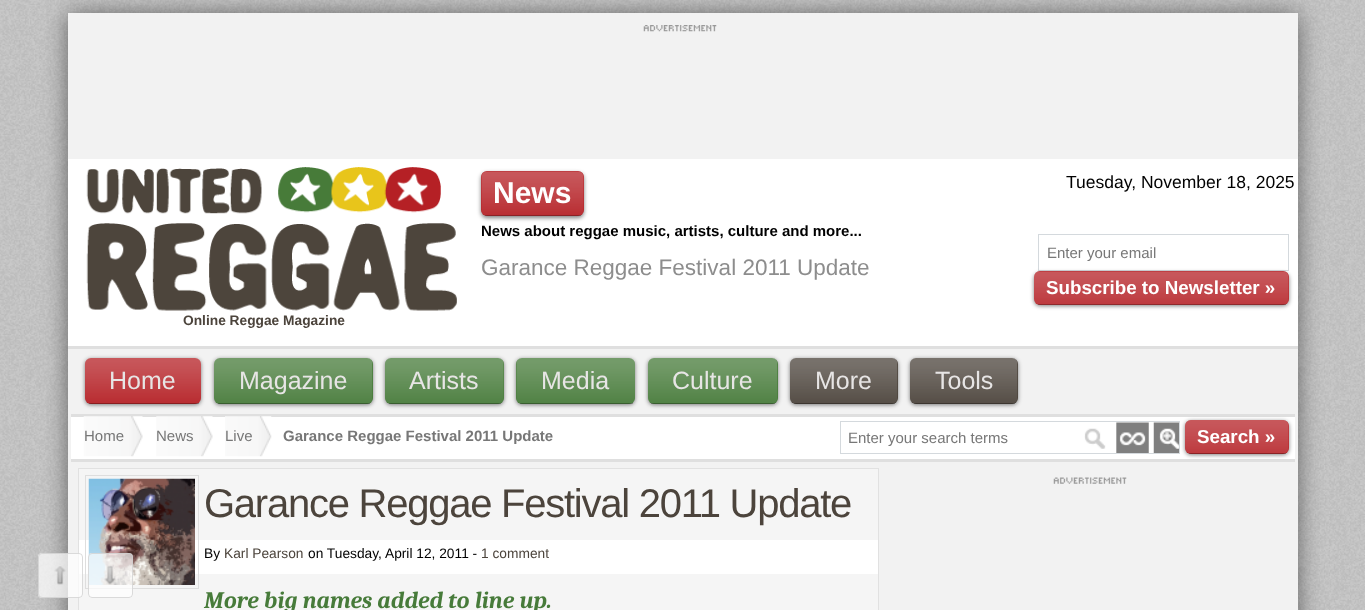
<?xml version="1.0" encoding="UTF-8"?>
<svg xmlns="http://www.w3.org/2000/svg" width="1365" height="610">
    <defs>
        <filter id="blur1" x="-50%" y="-200%" width="200%" height="500%"><feGaussianBlur stdDeviation="12.5"/></filter>
        <filter id="blur2" x="-50%" y="-200%" width="200%" height="500%"><feGaussianBlur stdDeviation="2"/></filter>
    </defs>
    <rect width="100%" height="100%" fill="#FFFFFF"/>
    <image x="0" y="0" width="1365" height="610" href="img_01.png"/>
    <rect x="68" y="14" width="1230" height="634" fill="#000000" fill-opacity="0.5" filter="url(#blur1)"/>
    <rect x="68" y="13" width="1230" height="597" fill="#F2F2F2"/>
    <rect x="79" y="540" width="799" height="34" fill="#FFFFFF"/>
    <rect x="78.5" y="468.5" width="800" height="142" fill="none" stroke="#E1E1E1"/>
    <rect x="79" y="574" width="799" height="36" fill="#F5F5F5"/>
    <rect x="38" y="553" width="45" height="45" rx="4" fill="#FFFFFF" fill-opacity="0.7"/>
    <image x="54" y="566" width="12" height="19" href="img_02.png"/>
    <rect x="38.5" y="553.5" width="44" height="44" rx="3.5" fill="none" stroke="#CCCCCC" stroke-opacity="0.7"/>
    <image x="643" y="25" width="74" height="7" href="img_03.png"/>
    <rect x="68" y="159" width="1230" height="187" fill="#FFFFFF"/>
    <rect x="68" y="346" width="1230" height="3" fill="#DFDFDF"/>
    <rect x="481" y="173" width="103" height="45" rx="6" fill="#000000" fill-opacity="0.5" filter="url(#blur2)"/>
    <rect x="481" y="171" width="103" height="45" rx="6" fill="#B52025"/>
    <image x="481" y="171" width="103" height="45" href="img_04.png"/>
    <rect x="485" y="215" width="96" height="1" fill="#000000" fill-opacity="0.25"/>
    <text x="493" y="203" font-family="Liberation Sans" font-size="30" font-weight="700" fill="#FFFFFF">News</text>
    <text x="481" y="236" font-family="Liberation Sans" font-size="15" font-weight="700" fill="#000000">News about reggae music, artists, culture and more...</text>
    <text x="481" y="275" font-family="Liberation Sans" font-size="22.5" fill="#8D8D8D">Garance Reggae Festival 2011 Update</text>
    <text x="1066" y="188" font-family="Liberation Sans" font-size="17.5" fill="#000000">Tuesday, November 18, 2025</text>
    <rect x="1038.5" y="234.5" width="250" height="36" fill="none" stroke="#D4D9DD"/>
    <text x="1047" y="258" font-family="Liberation Sans" font-size="15" fill="#777777">Enter your email</text>
    <rect x="1034" y="273" width="255" height="33" rx="6" fill="#000000" fill-opacity="0.5" filter="url(#blur2)"/>
    <rect x="1034" y="271" width="255" height="34" rx="6" fill="#B52025"/>
    <image x="1034" y="271" width="255" height="34" href="img_05.png"/>
    <rect x="1038" y="304" width="248" height="1" fill="#000000" fill-opacity="0.25"/>
    <text x="1046" y="294" font-family="Liberation Sans" font-size="18.75" font-weight="700" fill="#FFFFFF">Subscribe to Newsletter »</text>
    <image x="86" y="167" width="371" height="144" href="img_06.png"/>
    <text x="183" y="325" font-family="Liberation Sans" font-size="13.75" font-weight="700" fill="#4C443C">Online Reggae Magazine</text>
    <rect x="85" y="359" width="116" height="46" rx="6" fill="#000000" fill-opacity="0.5" filter="url(#blur2)"/>
    <rect x="85" y="358" width="116" height="46" rx="6" fill="#B52025"/>
    <image x="85" y="358" width="116" height="46" href="img_07.png"/>
    <rect x="89" y="403" width="110" height="1" fill="#000000" fill-opacity="0.25"/>
    <text x="109" y="389" font-family="Liberation Sans" font-size="25" fill="#E7E5E5">Home</text>
    <rect x="214" y="359" width="159" height="46" rx="6" fill="#000000" fill-opacity="0.5" filter="url(#blur2)"/>
    <rect x="214" y="358" width="159" height="46" rx="6" fill="#477B3A"/>
    <image x="214" y="358" width="159" height="46" href="img_08.png"/>
    <rect x="218" y="403" width="152" height="1" fill="#000000" fill-opacity="0.25"/>
    <text x="239" y="389" font-family="Liberation Sans" font-size="25" fill="#E7E5E5">Magazine</text>
    <rect x="385" y="359" width="119" height="46" rx="6" fill="#000000" fill-opacity="0.5" filter="url(#blur2)"/>
    <rect x="385" y="358" width="119" height="46" rx="6" fill="#477B3A"/>
    <image x="385" y="358" width="119" height="46" href="img_09.png"/>
    <rect x="389" y="403" width="112" height="1" fill="#000000" fill-opacity="0.25"/>
    <text x="409" y="389" font-family="Liberation Sans" font-size="25" fill="#E7E5E5">Artists</text>
    <rect x="516" y="359" width="119" height="46" rx="6" fill="#000000" fill-opacity="0.5" filter="url(#blur2)"/>
    <rect x="516" y="358" width="119" height="46" rx="6" fill="#477B3A"/>
    <image x="516" y="358" width="119" height="46" href="img_10.png"/>
    <rect x="520" y="403" width="113" height="1" fill="#000000" fill-opacity="0.25"/>
    <text x="541" y="389" font-family="Liberation Sans" font-size="25" fill="#E7E5E5">Media</text>
    <rect x="648" y="359" width="130" height="46" rx="6" fill="#000000" fill-opacity="0.5" filter="url(#blur2)"/>
    <rect x="648" y="358" width="130" height="46" rx="6" fill="#477B3A"/>
    <image x="648" y="358" width="130" height="46" href="img_11.png"/>
    <rect x="651" y="403" width="124" height="1" fill="#000000" fill-opacity="0.25"/>
    <text x="672" y="389" font-family="Liberation Sans" font-size="25" fill="#E7E5E5">Culture</text>
    <rect x="790" y="359" width="108" height="46" rx="6" fill="#000000" fill-opacity="0.5" filter="url(#blur2)"/>
    <rect x="790" y="358" width="108" height="46" rx="6" fill="#4C443C"/>
    <image x="790" y="358" width="108" height="46" href="img_12.png"/>
    <rect x="794" y="403" width="101" height="1" fill="#000000" fill-opacity="0.25"/>
    <text x="815" y="389" font-family="Liberation Sans" font-size="25" fill="#E7E5E5">More</text>
    <rect x="910" y="359" width="108" height="46" rx="6" fill="#000000" fill-opacity="0.5" filter="url(#blur2)"/>
    <rect x="910" y="358" width="108" height="46" rx="6" fill="#4C443C"/>
    <image x="910" y="358" width="108" height="46" href="img_13.png"/>
    <rect x="914" y="403" width="101" height="1" fill="#000000" fill-opacity="0.25"/>
    <text x="935" y="389" font-family="Liberation Sans" font-size="25" fill="#E7E5E5">Tools</text>
    <rect x="71" y="417" width="1224" height="42" fill="#FFFFFF"/>
    <rect x="71" y="414" width="1224" height="3" fill="#DFDFDF"/>
    <rect x="71" y="459" width="1224" height="3" fill="#DFDFDF"/>
    <image x="83" y="416" width="60" height="41" href="img_14.png"/>
    <text x="84" y="441" font-family="Liberation Sans" font-size="15" fill="#777777">Home</text>
    <image x="156" y="416" width="57" height="41" href="img_15.png"/>
    <text x="156" y="441" font-family="Liberation Sans" font-size="15" fill="#777777">News</text>
    <image x="225" y="416" width="47" height="41" href="img_16.png"/>
    <text x="225" y="441" font-family="Liberation Sans" font-size="15" fill="#777777">Live</text>
    <text x="283" y="441" font-family="Liberation Sans" font-size="15" font-weight="700" fill="#777777">Garance Reggae Festival 2011 Update</text>
    <image x="1084" y="422" width="95" height="31" href="img_17.png"/>
    <rect x="840.5" y="421.5" width="339" height="32" fill="none" stroke="#D4D9DD"/>
    <text x="848" y="443" font-family="Liberation Sans" font-size="15" fill="#777777">Enter your search terms</text>
    <rect x="1185" y="421" width="104" height="34" rx="6" fill="#000000" fill-opacity="0.5" filter="url(#blur2)"/>
    <rect x="1185" y="420" width="104" height="34" rx="6" fill="#B52025"/>
    <image x="1185" y="420" width="104" height="34" href="img_18.png"/>
    <rect x="1189" y="453" width="97" height="1" fill="#000000" fill-opacity="0.25"/>
    <text x="1197" y="443" font-family="Liberation Sans" font-size="18.75" font-weight="700" fill="#FFFFFF">Search »</text>
    <image x="1053" y="477" width="74" height="7" href="img_19.png"/>
    <rect x="79" y="469" width="799" height="71" fill="#F5F5F5"/>
    <rect x="85.5" y="475.5" width="113" height="113" fill="none" stroke="#DEDEDE"/>
    <image x="88" y="478" width="107" height="107" href="img_20.png"/>
    <text x="204" y="517" font-family="Liberation Sans" font-size="40" letter-spacing="-1.25" fill="#4C443C">Garance Reggae Festival 2011 Update</text>
    <text x="204" y="558" font-family="Liberation Sans" font-size="13.75" fill="#000000">By</text>
    <text x="224" y="558" font-family="Liberation Sans" font-size="13.75" fill="#4C443C">Karl Pearson</text>
    <text x="308" y="558" font-family="Liberation Sans" font-size="13.75" fill="#000000">on Tuesday, April 12, 2011 -</text>
    <text x="481" y="558" font-family="Liberation Sans" font-size="13.75" fill="#4C443C">1 comment</text>
    <text x="204" y="608" font-family="Caladea" font-size="23.75" font-weight="700" font-style="italic" fill="#477B3A">More big names added to line up.</text>
    <rect x="88" y="553" width="45" height="45" rx="4" fill="#FFFFFF" fill-opacity="0.7"/>
    <image x="104" y="565" width="12" height="20" href="img_21.png"/>
    <rect x="88.5" y="553.5" width="44" height="44" rx="3.5" fill="none" stroke="#CCCCCC" stroke-opacity="0.7"/>
</svg>
